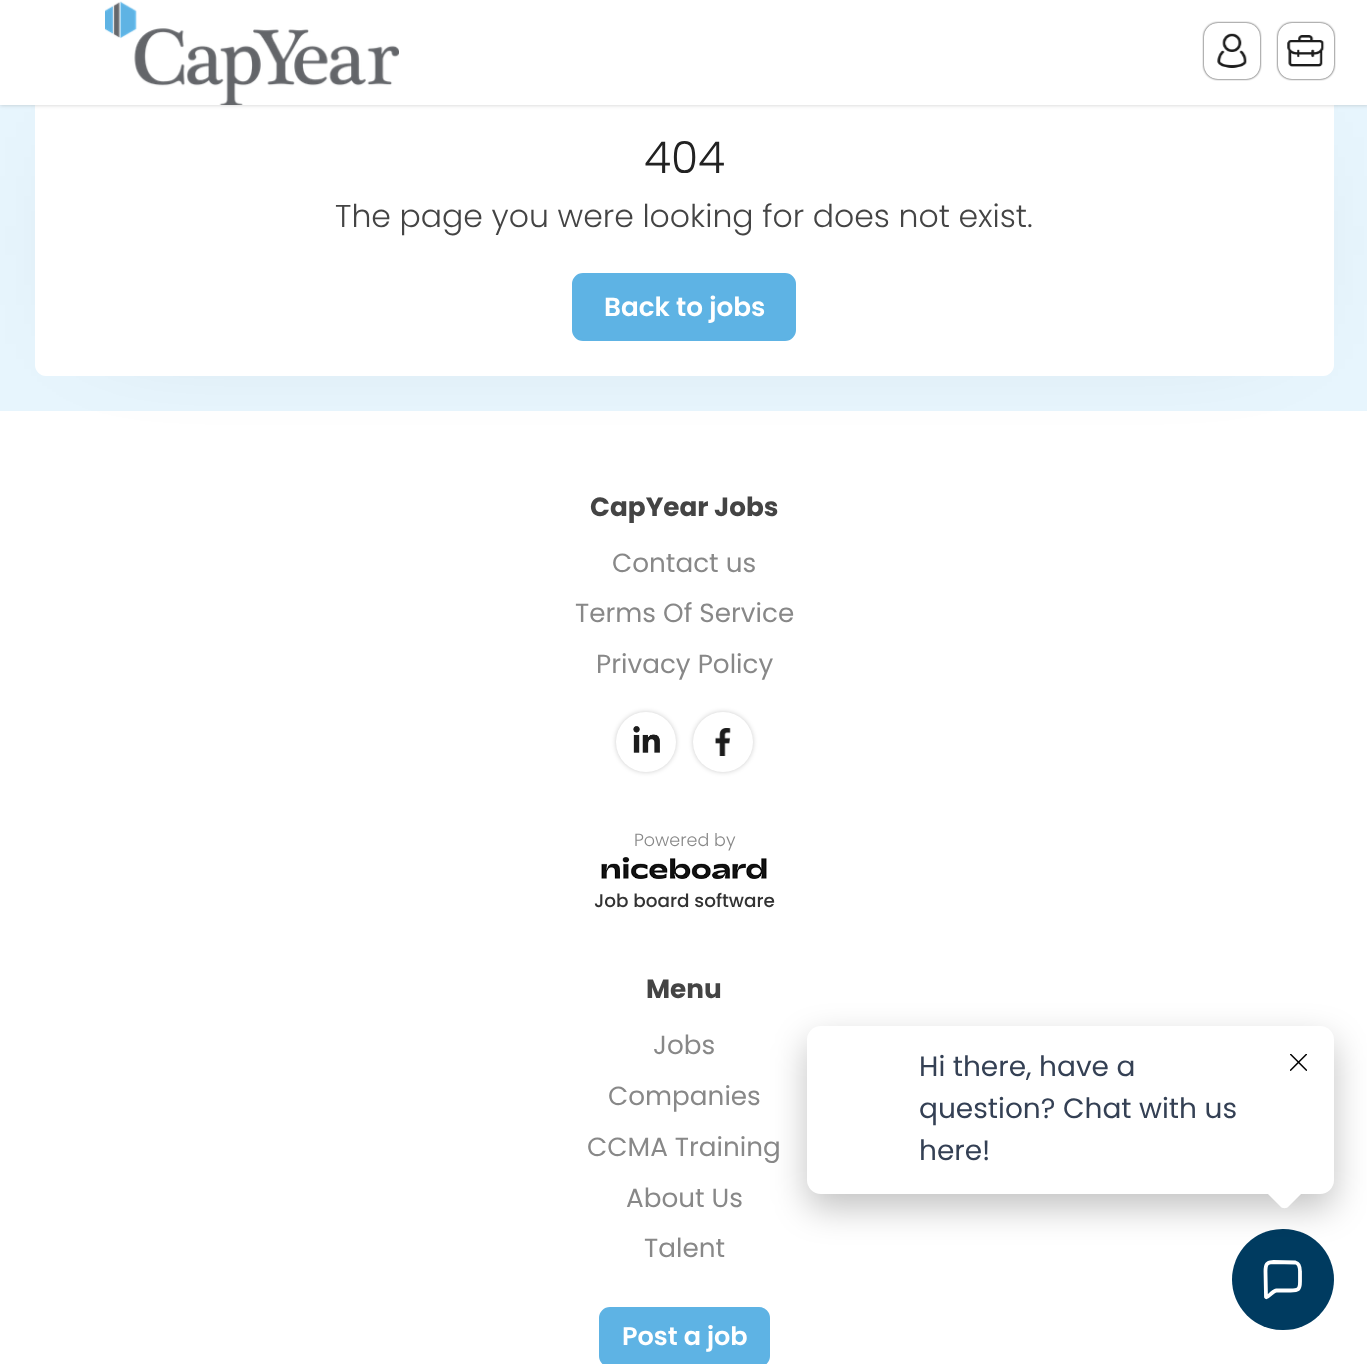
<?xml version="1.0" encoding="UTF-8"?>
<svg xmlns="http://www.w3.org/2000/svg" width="1367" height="1364">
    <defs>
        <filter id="blur1" x="-50%" y="-200%" width="200%" height="500%"><feGaussianBlur stdDeviation="57"/></filter>
        <filter id="blur2" x="-50%" y="-200%" width="200%" height="500%"><feGaussianBlur stdDeviation="2"/></filter>
        <filter id="blur3" x="-50%" y="-200%" width="200%" height="500%"><feGaussianBlur stdDeviation="1"/></filter>
        <filter id="blur4" x="-50%" y="-200%" width="200%" height="500%"><feGaussianBlur stdDeviation="2.5"/></filter>
        <filter id="blur5" x="-50%" y="-200%" width="200%" height="500%"><feGaussianBlur stdDeviation="17.5"/></filter>
    </defs>
    <rect width="100%" height="100%" fill="#E7F5FD"/>
    <rect x="0" y="411" width="1367" height="953" fill="#FFFFFF"/>
    <rect x="105" y="175" width="1159" height="131" fill="#000000" fill-opacity="0.2" filter="url(#blur1)"/>
    <path d="M 35 105 H 1334 V 365 C 1334 371 1329 376 1323 376 H 46 C 40 376 35 371 35 365 Z" fill="#FFFFFF"/>
    <rect x="0" y="0" width="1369" height="105" fill="#000000" fill-opacity="0.2" filter="url(#blur2)"/>
    <rect x="0" y="0" width="1367" height="105" fill="#FFFFFF"/>
    <image x="105" y="1" width="294" height="104" href="img_01.png"/>
    <rect x="1204" y="23" width="56" height="56" rx="14" fill="#000000" fill-opacity="0.9" filter="url(#blur3)"/>
    <rect x="1204" y="23" width="56" height="56" rx="14" fill="#FFFFFF"/>
    <image x="1217" y="33" width="30" height="35" href="img_02.png"/>
    <rect x="1278" y="23" width="56" height="56" rx="14" fill="#000000" fill-opacity="0.9" filter="url(#blur3)"/>
    <rect x="1278" y="23" width="56" height="56" rx="14" fill="#FFFFFF"/>
    <image x="1287" y="35" width="38" height="32" href="img_03.png"/>
    <text x="644" y="173" font-family="Poppins" font-size="44" font-weight="300" fill="#222222">404</text>
    <text x="335" y="227" font-family="Poppins" font-size="31.5" font-weight="300" fill="#444444">The page you were looking for does not exist.</text>
    <rect x="573" y="274" width="222" height="66" rx="10" fill="#5EB3E4" stroke="#5EB3E4" stroke-width="2"/>
    <text x="604" y="316" font-family="Poppins" font-size="26.25" font-weight="600" fill="#FFFFFF">Back to jobs</text>
    <text x="590" y="516" font-family="Poppins" font-size="26.25" font-weight="700" fill="#444444">CapYear Jobs</text>
    <text x="612" y="572" font-family="Poppins" font-size="26.25" fill="#888888">Contact us</text>
    <text x="575" y="622" font-family="Poppins" font-size="26.25" fill="#888888">Terms Of Service</text>
    <text x="596" y="673" font-family="Poppins" font-size="26.25" fill="#888888">Privacy Policy</text>
    <rect x="616" y="712" width="60" height="60" rx="30" fill="#000000" fill-opacity="0.2" filter="url(#blur4)"/>
    <circle cx="646" cy="742" r="30" fill="#FFFFFF"/>
    <image x="633" y="726" width="27" height="27" href="img_04.png"/>
    <rect x="693" y="712" width="60" height="60" rx="30" fill="#000000" fill-opacity="0.2" filter="url(#blur4)"/>
    <circle cx="723" cy="742" r="30" fill="#FFFFFF"/>
    <image x="715" y="728" width="16" height="28" href="img_05.png"/>
    <text x="634" y="846" font-family="Poppins" font-size="17.5" font-weight="300" fill="#888888">Powered by</text>
    <image x="601" y="857" width="166" height="22" href="img_06.png"/>
    <text x="594" y="907" font-family="Poppins" font-size="18.4" font-weight="500" fill="#333333">Job board software</text>
    <text x="646" y="998" font-family="Poppins" font-size="26.25" font-weight="700" fill="#444444">Menu</text>
    <text x="653" y="1054" font-family="Poppins" font-size="26.25" fill="#888888">Jobs</text>
    <text x="608" y="1105" font-family="Poppins" font-size="26.25" fill="#888888">Companies</text>
    <text x="587" y="1156" font-family="Poppins" font-size="26.25" fill="#888888">CCMA Training</text>
    <text x="626" y="1207" font-family="Poppins" font-size="26.25" fill="#888888">About Us</text>
    <text x="644" y="1257" font-family="Poppins" font-size="26.25" fill="#888888">Talent</text>
    <rect x="600" y="1308" width="169" height="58" rx="10" fill="#5EB3E4" stroke="#5EB3E4" stroke-width="2"/>
    <text x="622" y="1345" font-family="Poppins" font-size="25.5" font-weight="600" fill="#FFFFFF">Post a job</text>
    <rect x="1232" y="1229" width="102" height="101" rx="50.5" fill="#003B60"/>
    <path d="M 1265.5 1271.5 C 1265.5 1264.5 1266.5 1262 1273.5 1262 L 1295.5 1262.5 C 1300.5 1263.5 1300 1269.5 1300 1273 V 1281.5 C 1300 1289.5 1298.5 1290.5 1290.5 1290.5 H 1276.5 C 1272.5 1291 1267 1298.5 1266 1297 Z" fill="none" stroke="#FFFFFF" stroke-width="3.8" stroke-linecap="round" stroke-linejoin="round"/>
    <rect x="807" y="1040" width="527" height="168" rx="14" fill="#000000" fill-opacity="0.24" filter="url(#blur5)"/>
    <rect x="807" y="1026" width="527" height="168" rx="14" fill="#FFFFFF"/>
    <text font-family="Poppins" font-size="28" fill="#344054">
        <tspan x="919" y="1076">Hi there, have a</tspan>
        <tspan x="919" y="1118">question? Chat with us</tspan>
        <tspan x="919" y="1160">here!</tspan>
    </text>
    <path d="M 1289 1167 L 1304 1182 C 1307 1184 1307 1189 1304 1191 L 1289 1206 C 1287 1209 1282 1209 1280 1206 L 1265 1191 C 1262 1189 1262 1184 1265 1182 L 1280 1167 C 1282 1164 1287 1164 1289 1167 Z" fill="#FFFFFF"/>
    <image x="1290" y="1054" width="17" height="17" href="img_07.png"/>
</svg>
